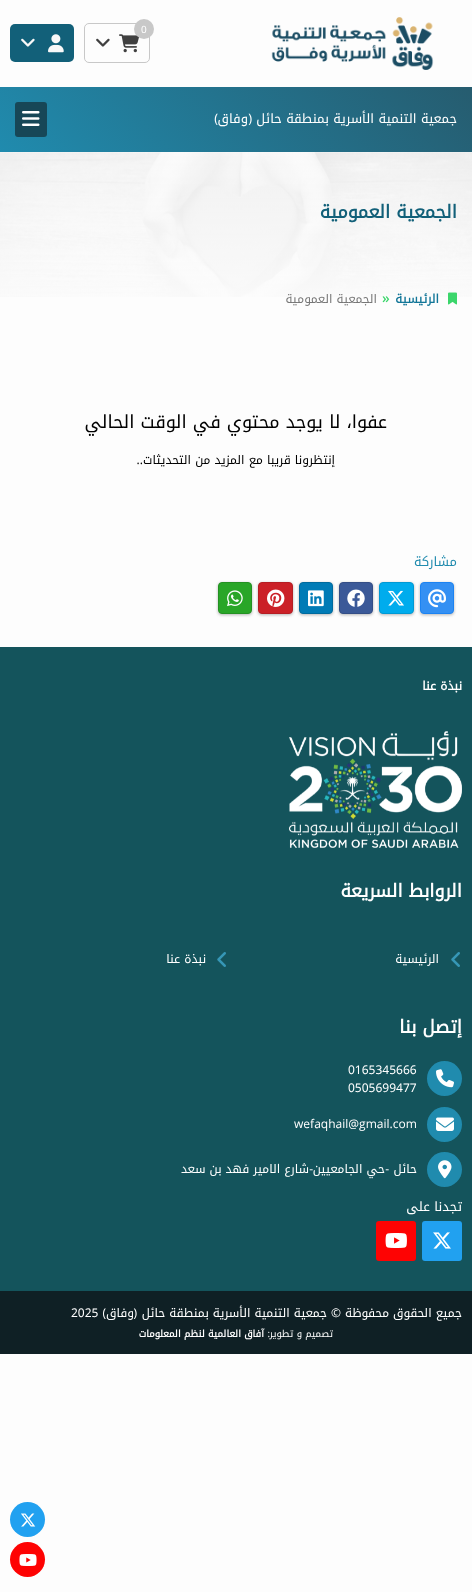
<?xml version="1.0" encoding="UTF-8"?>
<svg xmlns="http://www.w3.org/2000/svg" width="472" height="1592">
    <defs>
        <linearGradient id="g1" gradientUnits="userSpaceOnUse" x1="102" y1="254" x2="370" y2="-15"><stop offset="0" stop-color="#208BAE"/><stop offset="1" stop-color="#265C6F"/></linearGradient>
        <filter id="blur1" x="-50%" y="-200%" width="200%" height="500%"><feGaussianBlur stdDeviation="1.5"/></filter>
    </defs>
    <rect width="100%" height="100%" fill="#FDFDFD"/>
    <image x="271" y="17" width="163" height="53" href="img_01.png"/>
    <rect x="84.5" y="23.5" width="65" height="39" rx="4.5" fill="none" stroke="#C8C8C8"/>
    <image x="119" y="34" width="20" height="19" href="img_02.png"/>
    <circle cx="144" cy="29" r="10" fill="#C8C8C8"/>
    <text x="141" y="33" font-family="Noto Kufi Arabic" font-size="10" fill="#FFFFFF">0</text>
    <image x="96" y="38" width="14" height="9" href="img_03.png"/>
    <rect x="10" y="24" width="64" height="38" rx="5" fill="#126079"/>
    <image x="48" y="34" width="16" height="19" href="img_04.png"/>
    <image x="21" y="38" width="14" height="9" href="img_05.png"/>
    <rect x="0" y="87" width="472" height="65" fill="url(#g1)"/>
    <text x="457" y="123" font-family="Noto Kufi Arabic" font-size="13" direction="rtl" fill="#FFFFFF">جمعية التنمية الأسرية بمنطقة حائل</text>
    <text x="252" y="123" font-family="Open Sans" font-size="13" direction="rtl" fill="#FFFFFF">(</text>
    <text x="248" y="123" font-family="Noto Kufi Arabic" font-size="13" direction="rtl" fill="#FFFFFF">وفاق</text>
    <text x="218" y="123" font-family="Open Sans" font-size="13" direction="rtl" fill="#FFFFFF">)</text>
    <rect x="15" y="102" width="32" height="35" rx="3" fill="#174757"/>
    <image x="22" y="111" width="18" height="15" href="img_06.png"/>
    <image x="0" y="152" width="472" height="145" href="img_07.png"/>
    <text x="457" y="218" font-family="Noto Kufi Arabic" font-size="18" font-weight="700" direction="rtl" fill="#126079">الجمعية العمومية</text>
    <image x="448" y="292" width="9" height="13" href="img_08.png"/>
    <text x="439" y="303" font-family="Noto Kufi Arabic" font-size="12" font-weight="700" direction="rtl" fill="#127698">الرئيسية</text>
    <text x="382" y="303" font-family="Open Sans" font-size="14" font-weight="600" fill="#3BD66B">»</text>
    <text x="377" y="303" font-family="Noto Kufi Arabic" font-size="12" direction="rtl" fill="#777777">الجمعية العمومية</text>
    <text x="387" y="428" font-family="Noto Kufi Arabic" font-size="18" direction="rtl" fill="#000000">عفوا، لا يوجد محتوي في الوقت الحالي</text>
    <text x="335" y="464" font-family="Noto Kufi Arabic" font-size="12" direction="rtl" fill="#000000">إنتظرونا قريبا مع المزيد من التحديثات</text>
    <text x="143" y="464" font-family="Open Sans" font-size="12" direction="rtl" fill="#000000">..</text>
    <text x="457" y="566" font-family="Noto Kufi Arabic" font-size="13" direction="rtl" fill="#208BAE">مشاركة</text>
    <rect x="420" y="583" width="34" height="32" rx="4" fill="#000000" fill-opacity="0.15" filter="url(#blur1)"/>
    <rect x="420" y="583" width="34" height="32" rx="4" fill="#000000" fill-opacity="0.15" filter="url(#blur1)"/>
    <rect x="420.5" y="582.5" width="33" height="31" rx="3.5" fill="#3490F3" stroke="#1C83F2"/>
    <image x="428" y="589" width="18" height="19" href="img_09.png"/>
    <rect x="379" y="583" width="35" height="32" rx="4" fill="#000000" fill-opacity="0.15" filter="url(#blur1)"/>
    <rect x="379" y="583" width="35" height="32" rx="4" fill="#000000" fill-opacity="0.15" filter="url(#blur1)"/>
    <rect x="379.5" y="582.5" width="34" height="31" rx="3.5" fill="#00ACED" stroke="#0099D4"/>
    <image x="388" y="590" width="16" height="16" href="img_10.png"/>
    <rect x="339" y="583" width="34" height="32" rx="4" fill="#000000" fill-opacity="0.15" filter="url(#blur1)"/>
    <rect x="339" y="583" width="34" height="32" rx="4" fill="#000000" fill-opacity="0.15" filter="url(#blur1)"/>
    <rect x="339.5" y="582.5" width="33" height="31" rx="3.5" fill="#3B5998" stroke="#344E86"/>
    <image x="347" y="589" width="18" height="18" href="img_11.png"/>
    <rect x="299" y="583" width="34" height="32" rx="4" fill="#000000" fill-opacity="0.15" filter="url(#blur1)"/>
    <rect x="299" y="583" width="34" height="32" rx="4" fill="#000000" fill-opacity="0.15" filter="url(#blur1)"/>
    <rect x="299.5" y="582.5" width="33" height="31" rx="3.5" fill="#007BB6" stroke="#006A9D"/>
    <image x="308" y="590" width="16" height="17" href="img_12.png"/>
    <rect x="258" y="583" width="35" height="32" rx="4" fill="#000000" fill-opacity="0.15" filter="url(#blur1)"/>
    <rect x="258" y="583" width="35" height="32" rx="4" fill="#000000" fill-opacity="0.15" filter="url(#blur1)"/>
    <rect x="258.5" y="582.5" width="34" height="31" rx="3.5" fill="#CB2027" stroke="#B51D23"/>
    <image x="267" y="589" width="18" height="18" href="img_13.png"/>
    <rect x="218" y="583" width="34" height="32" rx="4" fill="#000000" fill-opacity="0.15" filter="url(#blur1)"/>
    <rect x="218" y="583" width="34" height="32" rx="4" fill="#000000" fill-opacity="0.15" filter="url(#blur1)"/>
    <rect x="218.5" y="582.5" width="33" height="31" rx="3.5" fill="#29A628" stroke="#249123"/>
    <image x="227" y="590" width="16" height="17" href="img_14.png"/>
    <rect x="0" y="647" width="472" height="644" fill="#14545C"/>
    <text x="462" y="690" font-family="Noto Kufi Arabic" font-size="12" font-weight="700" direction="rtl" fill="#FFFFFF">نبذة عنا</text>
    <image x="289" y="731" width="173" height="117" href="img_15.png"/>
    <text x="462" y="897" font-family="Noto Kufi Arabic" font-size="18" font-weight="700" direction="rtl" fill="#FFFFFF">الروابط السريعة</text>
    <image x="451" y="952" width="9" height="15" href="img_16.png"/>
    <text x="439" y="963" font-family="Noto Kufi Arabic" font-size="12" direction="rtl" fill="#FFFFFF">الرئيسية</text>
    <image x="217" y="952" width="9" height="15" href="img_16.png"/>
    <text x="206" y="963" font-family="Noto Kufi Arabic" font-size="12" direction="rtl" fill="#FFFFFF">نبذة عنا</text>
    <text x="462" y="1033" font-family="Noto Kufi Arabic" font-size="18" font-weight="700" direction="rtl" fill="#FFFFFF">إتصل بنا</text>
    <circle cx="444.5" cy="1078.5" r="17.5" fill="#208BAE"/>
    <image x="436" y="1069" width="18" height="19" href="img_17.png"/>
    <text font-family="Noto Kufi Arabic" font-size="12" fill="#FFFFFF">
        <tspan x="348" y="1074">0165345666</tspan>
        <tspan x="348" y="1092">0505699477</tspan>
    </text>
    <circle cx="444.5" cy="1124.5" r="17.5" fill="#208BAE"/>
    <image x="436" y="1117" width="18" height="14" href="img_18.png"/>
    <text x="294" y="1128" font-family="Open Sans" font-size="12" fill="#FFFFFF">wefaqhail@gmail.com</text>
    <circle cx="444.5" cy="1169.5" r="17.5" fill="#208BAE"/>
    <image x="438" y="1160" width="14" height="19" href="img_19.png"/>
    <text x="417" y="1173" font-family="Noto Kufi Arabic" font-size="12" direction="rtl" fill="#FFFFFF">حائل</text>
    <text x="389" y="1173" font-family="Open Sans" font-size="12" direction="rtl" fill="#FFFFFF">-</text>
    <text x="385" y="1173" font-family="Noto Kufi Arabic" font-size="12" direction="rtl" fill="#FFFFFF">حي الجامعيين</text>
    <text x="313" y="1173" font-family="Open Sans" font-size="12" direction="rtl" fill="#FFFFFF">-</text>
    <text x="309" y="1173" font-family="Noto Kufi Arabic" font-size="12" direction="rtl" fill="#FFFFFF">شارع الامير فهد بن سعد</text>
    <text x="462" y="1211" font-family="Noto Kufi Arabic" font-size="13" direction="rtl" fill="#FFFFFF">تجدنا على</text>
    <rect x="422" y="1221" width="40" height="40" rx="3" fill="#21A1F0"/>
    <image x="433" y="1232" width="18" height="17" href="img_20.png"/>
    <rect x="376" y="1221" width="40" height="40" rx="3" fill="#FE0303"/>
    <image x="385" y="1233" width="22" height="15" href="img_21.png"/>
    <rect x="0" y="1291" width="472" height="63" fill="#0F2025"/>
    <text x="462" y="1317" font-family="Noto Kufi Arabic" font-size="12" direction="rtl" fill="#FFFFFF">جميع الحقوق محفوظة</text>
    <text x="341" y="1317" font-family="Open Sans" font-size="12" direction="rtl" fill="#FFFFFF">©</text>
    <text x="327" y="1317" font-family="Noto Kufi Arabic" font-size="12" direction="rtl" fill="#FFFFFF">جمعية التنمية الأسرية بمنطقة حائل</text>
    <text x="137" y="1317" font-family="Open Sans" font-size="12" direction="rtl" fill="#FFFFFF">(</text>
    <text x="134" y="1317" font-family="Noto Kufi Arabic" font-size="12" direction="rtl" fill="#FFFFFF">وفاق</text>
    <text x="106" y="1317" font-family="Open Sans" font-size="12" direction="rtl" fill="#FFFFFF">)</text>
    <text x="71" y="1317" font-family="Noto Kufi Arabic" font-size="12" fill="#FFFFFF">2025</text>
    <text x="270" y="1337" font-family="Open Sans" font-size="9.6" direction="rtl" fill="#FFFFFF">:</text>
    <text x="333" y="1337" font-family="Noto Kufi Arabic" font-size="9.6" direction="rtl" fill="#FFFFFF">تصميم و تطوير</text>
    <text x="264" y="1337" font-family="Noto Kufi Arabic" font-size="9.6" font-weight="700" direction="rtl" fill="#FFFFFF">آفاق العالمية لنظم المعلومات</text>
    <circle cx="27.5" cy="1519.5" r="17.5" fill="#21A1F0"/>
    <image x="21" y="1513" width="15" height="14" href="img_22.png"/>
    <circle cx="27.5" cy="1559.5" r="17.5" fill="#FE0303"/>
    <image x="19" y="1554" width="18" height="12" href="img_23.png"/>
</svg>
